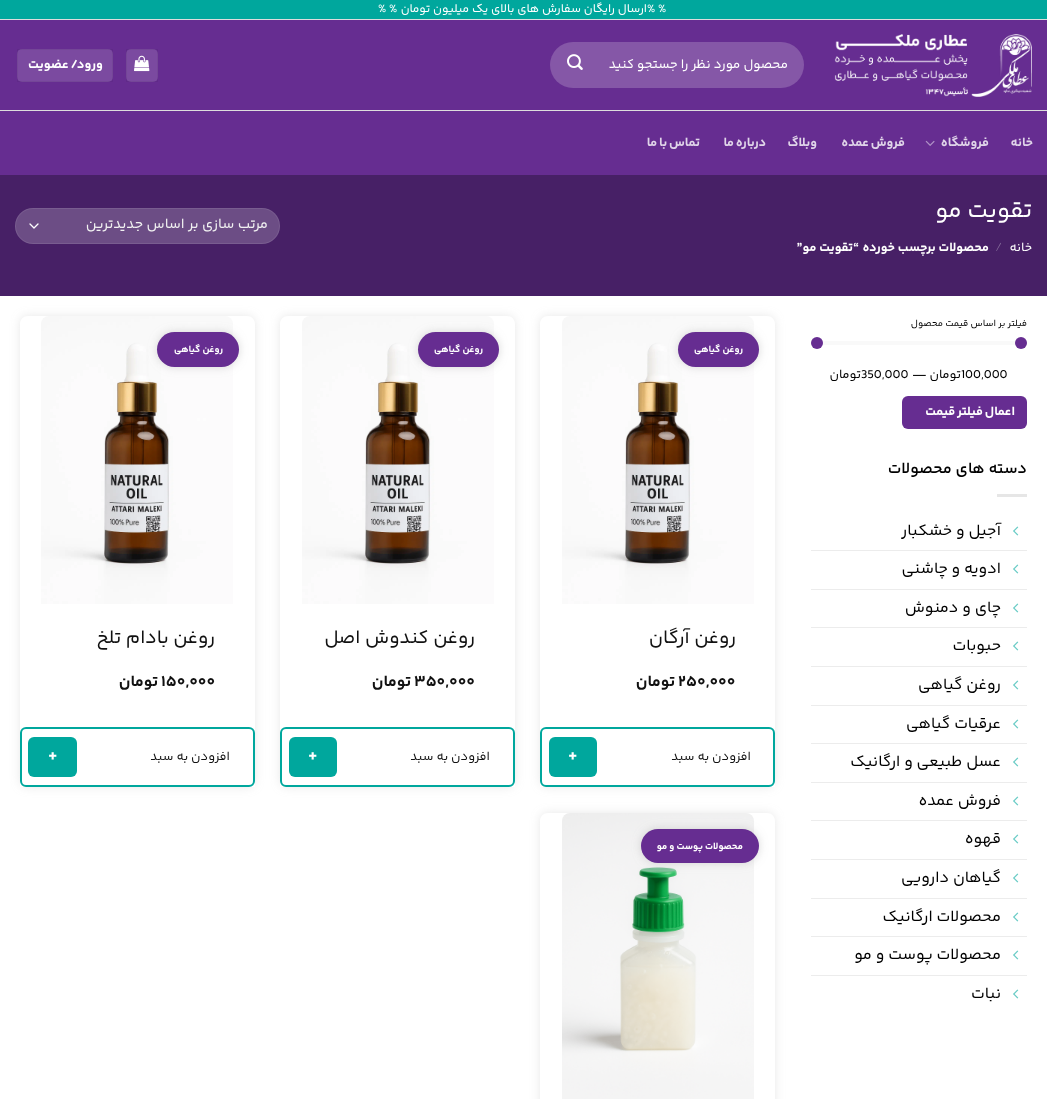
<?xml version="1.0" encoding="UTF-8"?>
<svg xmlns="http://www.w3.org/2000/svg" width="1047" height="1099">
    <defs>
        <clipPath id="clip1"><path d="M 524 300 H 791 V 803 H 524 Z M 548 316 H 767 C 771.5 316 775 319.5 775 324 V 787 H 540 V 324 C 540 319.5 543.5 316 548 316 Z" clip-rule="evenodd"/></clipPath>
        <filter id="blur1" x="-50%" y="-200%" width="200%" height="500%"><feGaussianBlur stdDeviation="5"/></filter>
        <clipPath id="clip2"><path d="M 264 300 H 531 V 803 H 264 Z M 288 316 H 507 C 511.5 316 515 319.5 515 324 V 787 H 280 V 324 C 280 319.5 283.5 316 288 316 Z" clip-rule="evenodd"/></clipPath>
        <clipPath id="clip3"><path d="M 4 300 H 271 V 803 H 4 Z M 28 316 H 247 C 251.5 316 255 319.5 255 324 V 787 H 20 V 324 C 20 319.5 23.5 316 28 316 Z" clip-rule="evenodd"/></clipPath>
        <clipPath id="clip4"><path d="M 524 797 H 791 V 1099 H 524 Z M 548 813 H 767 C 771.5 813 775 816.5 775 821 V 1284 H 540 V 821 C 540 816.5 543.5 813 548 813 Z" clip-rule="evenodd"/></clipPath>
    </defs>
    <rect width="100%" height="100%" fill="#FFFFFF"/>
    <rect x="0" y="0" width="1047" height="19" fill="#00A79D"/>
    <rect x="0" y="19" width="1047" height="1" fill="#DDDDDD"/>
    <text x="647" y="12" font-family="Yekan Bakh" font-size="12" fill="#FFFFFF">% %</text>
    <text x="647" y="12" font-family="Yekan Bakh" font-size="12" direction="rtl" fill="#FFFFFF">ارسال رایگان سفارش های بالای یک میلیون تومان</text>
    <text x="378" y="12" font-family="Yekan Bakh" font-size="12" fill="#FFFFFF">% %</text>
    <rect x="0" y="20" width="1047" height="155" fill="#662D91"/>
    <image x="834" y="34" width="198" height="63" href="img_01.png"/>
    <rect x="550" y="42" width="254" height="46" rx="23" fill="#8557A7"/>
    <text x="788" y="68" font-family="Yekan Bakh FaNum" font-size="13.25" direction="rtl" fill="#FFFFFF">محصول مورد نظر را جستجو کنید</text>
    <image x="567" y="54" width="16" height="16" href="img_02.png"/>
    <rect x="126" y="49" width="32" height="33" rx="5" fill="#7B4AA0"/>
    <rect x="126.5" y="49.5" width="31" height="32" fill="none" stroke="#000000" stroke-opacity="0.05"/>
    <image x="134" y="55" width="16" height="17" href="img_03.png"/>
    <rect x="17" y="49" width="96" height="33" rx="5" fill="#7B4AA0"/>
    <rect x="17.5" y="49.5" width="95" height="32" fill="none" stroke="#000000" stroke-opacity="0.05"/>
    <text x="103" y="68" font-family="Yekan Bakh FaNum" font-size="13" font-weight="700" letter-spacing="0.4" direction="rtl" fill="#FFFFFF">ورود</text>
    <text x="78" y="68" word-spacing="-1" font-family="Yekan Bakh FaNum" font-size="13" font-weight="700" letter-spacing="0.4" direction="rtl" fill="#FFFFFF">/ عضویت</text>
    <rect x="0" y="110" width="1047" height="1" fill="#DDDDDD"/>
    <text x="1033" y="146" font-family="Yekan Bakh" font-size="12.75" font-weight="700" letter-spacing="0.25" direction="rtl" fill="#E0D5E9">خانه</text>
    <text x="989" y="146" font-family="Yekan Bakh" font-size="12.75" font-weight="700" letter-spacing="0.25" direction="rtl" fill="#E0D5E9">فروشگاه</text>
    <image x="925" y="140" width="10" height="6" href="img_04.png"/>
    <text x="905" y="146" word-spacing="-1" font-family="Yekan Bakh" font-size="12.75" font-weight="700" letter-spacing="0.25" direction="rtl" fill="#E0D5E9">فروش عمده</text>
    <text x="817" y="146" font-family="Yekan Bakh" font-size="12.75" font-weight="700" letter-spacing="0.25" direction="rtl" fill="#E0D5E9">وبلاگ</text>
    <text x="766" y="146" word-spacing="-1" font-family="Yekan Bakh" font-size="12.75" font-weight="700" letter-spacing="0.25" direction="rtl" fill="#E0D5E9">درباره ما</text>
    <text x="700" y="146" word-spacing="-1" font-family="Yekan Bakh" font-size="12.75" font-weight="700" letter-spacing="0.25" direction="rtl" fill="#E0D5E9">تماس با ما</text>
    <rect x="0" y="175" width="1047" height="121" fill="#472066"/>
    <text x="1032" y="217" font-family="Yekan Bakh" font-size="24" direction="rtl" fill="#FFFFFF">تقویت مو</text>
    <text x="1032" y="251" font-family="Yekan Bakh FaNum" font-size="12.75" direction="rtl" fill="#FFFFFF">خانه</text>
    <text x="995" y="251" font-family="Yekan Bakh" font-size="12.75" font-weight="300" fill="#876E9C">/</text>
    <text x="989" y="251" font-family="Yekan Bakh" font-size="12.75" font-weight="700" direction="rtl" fill="#FFFFFF">محصولات برچسب خورده</text>
    <text x="859" y="251" font-family="Yekan Bakh" font-size="12.75" font-weight="700" direction="rtl" fill="#FFFFFF">“تقویت مو”</text>
    <rect x="15" y="208" width="265" height="36" rx="18" fill="#6C4D85"/>
    <path d="M 30 224 L 34 228 L 38 224" fill="none" stroke="#FFFFFF" stroke-width="1.3" stroke-linecap="round" stroke-linejoin="round"/>
    <rect x="15.5" y="208.5" width="264" height="35" rx="17.5" fill="none" stroke="#FFFFFF" stroke-opacity="0.09"/>
    <text x="268" y="228" font-family="Yekan Bakh" font-size="14.4" direction="rtl" fill="#F1F1F1">مرتب سازی بر اساس جدیدترین</text>
    <text x="1027" y="326" font-family="Yekan Bakh" font-size="9.6" direction="rtl" fill="#000000">فیلتر بر اساس قیمت محصول</text>
    <rect x="811" y="341" width="216" height="4" fill="#F9F9F9"/>
    <circle cx="1021" cy="343" r="6" fill="#662D91"/>
    <circle cx="817" cy="343" r="6" fill="#662D91"/>
    <text x="961" y="378" font-family="Yekan Bakh" font-size="12.75" fill="#000000">100,000</text>
    <text x="961" y="378" font-family="Yekan Bakh" font-size="12.75" direction="rtl" fill="#000000">تومان</text>
    <text x="912" y="378" font-family="Yekan Bakh" font-size="12.75" fill="#000000">—</text>
    <text x="861" y="378" font-family="Yekan Bakh" font-size="12.75" fill="#000000">350,000</text>
    <text x="861" y="378" font-family="Yekan Bakh" font-size="12.75" direction="rtl" fill="#000000">تومان</text>
    <rect x="902" y="396" width="125" height="33" rx="6" fill="#662D91"/>
    <text x="1015" y="415" word-spacing="-1" font-family="Yekan Bakh" font-size="12.75" font-weight="700" letter-spacing="0.4" direction="rtl" fill="#FFFFFF">اعمال فیلتر قیمت</text>
    <text x="1027" y="473" font-family="Yekan Bakh" font-size="16" font-weight="600" direction="rtl" fill="#000000">دسته های محصولات</text>
    <rect x="997" y="494" width="30" height="3" fill="#E6E6E6"/>
    <image x="1013" y="526" width="6" height="10" href="img_05.png"/>
    <text x="1001" y="535" font-family="Yekan Bakh FaNum" font-size="16" direction="rtl" fill="#000000">آجیل و خشکبار</text>
    <rect x="811" y="550" width="216" height="1" fill="#ECECEC"/>
    <image x="1013" y="564" width="6" height="10" href="img_05.png"/>
    <text x="1001" y="573" font-family="Yekan Bakh FaNum" font-size="16" direction="rtl" fill="#000000">ادویه و چاشنی</text>
    <rect x="811" y="589" width="216" height="1" fill="#ECECEC"/>
    <image x="1013" y="603" width="6" height="10" href="img_05.png"/>
    <text x="1001" y="612" font-family="Yekan Bakh FaNum" font-size="16" direction="rtl" fill="#000000">چای و دمنوش</text>
    <rect x="811" y="627" width="216" height="1" fill="#ECECEC"/>
    <image x="1013" y="641" width="6" height="10" href="img_05.png"/>
    <text x="1001" y="650" font-family="Yekan Bakh FaNum" font-size="16" direction="rtl" fill="#000000">حبوبات</text>
    <rect x="811" y="666" width="216" height="1" fill="#ECECEC"/>
    <image x="1013" y="680" width="6" height="10" href="img_05.png"/>
    <text x="1001" y="689" font-family="Yekan Bakh FaNum" font-size="16" direction="rtl" fill="#000000">روغن گیاهی</text>
    <rect x="811" y="705" width="216" height="1" fill="#ECECEC"/>
    <image x="1013" y="719" width="6" height="10" href="img_05.png"/>
    <text x="1001" y="728" font-family="Yekan Bakh FaNum" font-size="16" direction="rtl" fill="#000000">عرقیات گیاهی</text>
    <rect x="811" y="743" width="216" height="1" fill="#ECECEC"/>
    <image x="1013" y="757" width="6" height="10" href="img_05.png"/>
    <text x="1001" y="766" font-family="Yekan Bakh FaNum" font-size="16" direction="rtl" fill="#000000">عسل طبیعی و ارگانیک</text>
    <rect x="811" y="782" width="216" height="1" fill="#ECECEC"/>
    <image x="1013" y="796" width="6" height="10" href="img_05.png"/>
    <text x="1001" y="805" font-family="Yekan Bakh FaNum" font-size="16" direction="rtl" fill="#000000">فروش عمده</text>
    <rect x="811" y="820" width="216" height="1" fill="#ECECEC"/>
    <image x="1013" y="834" width="6" height="10" href="img_05.png"/>
    <text x="1001" y="843" font-family="Yekan Bakh FaNum" font-size="16" direction="rtl" fill="#000000">قهوه</text>
    <rect x="811" y="859" width="216" height="1" fill="#ECECEC"/>
    <image x="1013" y="873" width="6" height="10" href="img_05.png"/>
    <text x="1001" y="882" font-family="Yekan Bakh FaNum" font-size="16" direction="rtl" fill="#000000">گیاهان دارویی</text>
    <rect x="811" y="898" width="216" height="1" fill="#ECECEC"/>
    <image x="1013" y="912" width="6" height="10" href="img_05.png"/>
    <text x="1001" y="921" font-family="Yekan Bakh FaNum" font-size="16" direction="rtl" fill="#000000">محصولات ارگانیک</text>
    <rect x="811" y="936" width="216" height="1" fill="#ECECEC"/>
    <image x="1013" y="950" width="6" height="10" href="img_05.png"/>
    <text x="1001" y="959" font-family="Yekan Bakh FaNum" font-size="16" direction="rtl" fill="#000000">محصولات پوست و مو</text>
    <rect x="811" y="975" width="216" height="1" fill="#ECECEC"/>
    <image x="1013" y="989" width="6" height="10" href="img_05.png"/>
    <text x="1001" y="998" font-family="Yekan Bakh FaNum" font-size="16" direction="rtl" fill="#000000">نبات</text>
    <g clip-path="url(#clip1)">
        <rect x="540" y="316" width="235" height="471" rx="8" fill="#C0C0C0" fill-opacity="0.38" filter="url(#blur1)"/>
    </g>
    <image x="562" y="316" width="192" height="288" href="img_06.png"/>
    <rect x="678" y="332" width="81" height="35" rx="17.5" fill="#A5A5A5" fill-opacity="0.44" filter="url(#blur1)"/>
    <rect x="678" y="332" width="81" height="35" rx="17.5" fill="#662D91"/>
    <text x="743" y="352" font-family="Yekan Bakh FaNum" font-size="9.6" font-weight="700" direction="rtl" fill="#FFFFFF">روغن گیاهی</text>
    <text x="736" y="643" font-family="Yekan Bakh FaNum" font-size="19.25" direction="rtl" fill="#111111">روغن آرگان</text>
    <text x="678" y="686" font-family="Yekan Bakh" font-size="16" font-weight="700" fill="#111111">۲۵۰,۰۰۰</text>
    <text x="675" y="686" font-family="Yekan Bakh" font-size="16" font-weight="700" direction="rtl" fill="#111111">تومان</text>
    <rect x="541" y="728" width="233" height="58" rx="5" fill="none" stroke="#00A79D" stroke-width="2"/>
    <text x="751" y="760" font-family="Yekan Bakh" font-size="12.75" direction="rtl" fill="#111111">افزودن به سبد</text>
    <rect x="549" y="737" width="48" height="40" rx="6" fill="#00A79D"/>
    <text x="568" y="759" font-family="Yekan Bakh FaNum" font-size="16" font-weight="700" fill="#FFFFFF">+</text>
    <g clip-path="url(#clip2)">
        <rect x="280" y="316" width="235" height="471" rx="8" fill="#C0C0C0" fill-opacity="0.38" filter="url(#blur1)"/>
    </g>
    <image x="302" y="316" width="192" height="288" href="img_06.png"/>
    <rect x="418" y="332" width="81" height="35" rx="17.5" fill="#A5A5A5" fill-opacity="0.44" filter="url(#blur1)"/>
    <rect x="418" y="332" width="81" height="35" rx="17.5" fill="#662D91"/>
    <text x="483" y="352" font-family="Yekan Bakh FaNum" font-size="9.6" font-weight="700" direction="rtl" fill="#FFFFFF">روغن گیاهی</text>
    <text x="475" y="643" font-family="Yekan Bakh FaNum" font-size="19.25" direction="rtl" fill="#111111">روغن کندوش اصل</text>
    <text x="414" y="686" font-family="Yekan Bakh" font-size="16" font-weight="700" fill="#111111">۳۵۰,۰۰۰</text>
    <text x="411" y="686" font-family="Yekan Bakh" font-size="16" font-weight="700" direction="rtl" fill="#111111">تومان</text>
    <rect x="281" y="728" width="233" height="58" rx="5" fill="none" stroke="#00A79D" stroke-width="2"/>
    <text x="490" y="760" font-family="Yekan Bakh" font-size="12.75" direction="rtl" fill="#111111">افزودن به سبد</text>
    <rect x="289" y="737" width="48" height="40" rx="6" fill="#00A79D"/>
    <text x="308" y="759" font-family="Yekan Bakh FaNum" font-size="16" font-weight="700" fill="#FFFFFF">+</text>
    <g clip-path="url(#clip3)">
        <rect x="20" y="316" width="235" height="471" rx="8" fill="#C0C0C0" fill-opacity="0.38" filter="url(#blur1)"/>
    </g>
    <image x="41" y="316" width="192" height="288" href="img_06.png"/>
    <rect x="157" y="332" width="82" height="35" rx="17.5" fill="#A5A5A5" fill-opacity="0.44" filter="url(#blur1)"/>
    <rect x="157" y="332" width="82" height="35" rx="17.5" fill="#662D91"/>
    <text x="223" y="352" font-family="Yekan Bakh FaNum" font-size="9.6" font-weight="700" direction="rtl" fill="#FFFFFF">روغن گیاهی</text>
    <text x="215" y="643" font-family="Yekan Bakh FaNum" font-size="19.25" direction="rtl" fill="#111111">روغن بادام تلخ</text>
    <text x="161" y="686" font-family="Yekan Bakh" font-size="16" font-weight="700" fill="#111111">۱۵۰,۰۰۰</text>
    <text x="158" y="686" font-family="Yekan Bakh" font-size="16" font-weight="700" direction="rtl" fill="#111111">تومان</text>
    <rect x="21" y="728" width="233" height="58" rx="5" fill="none" stroke="#00A79D" stroke-width="2"/>
    <text x="230" y="760" font-family="Yekan Bakh" font-size="12.75" direction="rtl" fill="#111111">افزودن به سبد</text>
    <rect x="28" y="737" width="49" height="40" rx="6" fill="#00A79D"/>
    <text x="48" y="759" font-family="Yekan Bakh FaNum" font-size="16" font-weight="700" fill="#FFFFFF">+</text>
    <g clip-path="url(#clip4)">
        <rect x="540" y="813" width="235" height="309" rx="8" fill="#C0C0C0" fill-opacity="0.38" filter="url(#blur1)"/>
    </g>
    <image x="562" y="813" width="192" height="286" href="img_07.png"/>
    <rect x="641" y="829" width="118" height="34" rx="17" fill="#A5A5A5" fill-opacity="0.44" filter="url(#blur1)"/>
    <rect x="641" y="829" width="118" height="34" rx="17" fill="#662D91"/>
    <text x="743" y="849" font-family="Yekan Bakh FaNum" font-size="9.6" font-weight="700" direction="rtl" fill="#FFFFFF">محصولات پوست و مو</text>
</svg>
